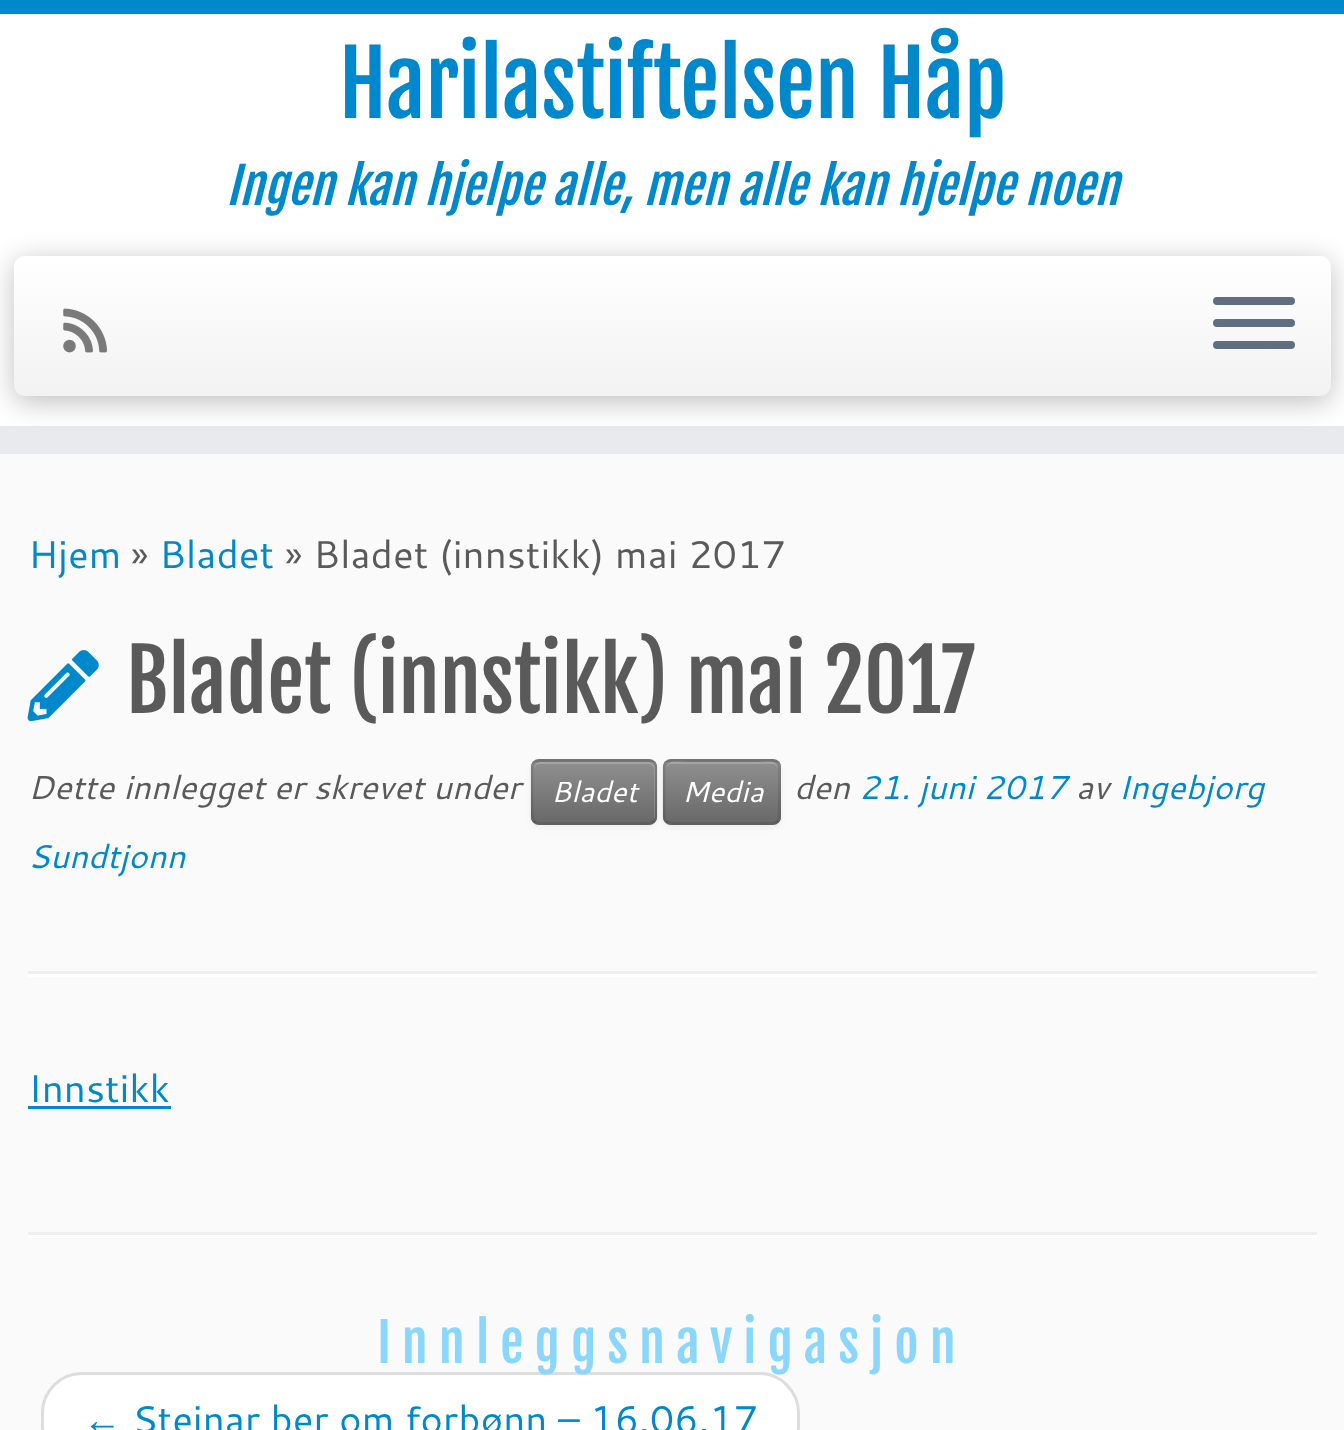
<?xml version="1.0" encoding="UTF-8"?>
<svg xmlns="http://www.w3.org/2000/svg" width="1344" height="1430">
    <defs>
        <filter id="blur1" x="-50%" y="-200%" width="200%" height="500%"><feGaussianBlur stdDeviation="14"/></filter>
        <linearGradient id="g1" gradientUnits="userSpaceOnUse" x1="672" y1="256" x2="672" y2="396"><stop offset="0" stop-color="#FFFFFF"/><stop offset="1" stop-color="#F2F2F2"/></linearGradient>
        <filter id="blur2" x="-50%" y="-200%" width="200%" height="500%"><feGaussianBlur stdDeviation="3"/></filter>
        <clipPath id="clip1"><rect x="531" y="759" width="126" height="66" rx="8"/></clipPath>
        <linearGradient id="g2" gradientUnits="userSpaceOnUse" x1="594" y1="762" x2="594" y2="822"><stop offset="0" stop-color="#8F8F8F"/><stop offset="1" stop-color="#696969"/></linearGradient>
        <clipPath id="clip2"><rect x="663" y="759" width="118" height="66" rx="8"/></clipPath>
        <linearGradient id="g3" gradientUnits="userSpaceOnUse" x1="722" y1="762" x2="722" y2="822"><stop offset="0" stop-color="#8F8F8F"/><stop offset="1" stop-color="#696969"/></linearGradient>
    </defs>
    <rect width="100%" height="100%" fill="#FAFAFA"/>
    <rect x="0" y="14" width="1344" height="412" fill="#FFFFFF"/>
    <rect x="0" y="0" width="1344" height="14" fill="#0088CC"/>
    <rect x="0" y="426" width="1344" height="28" fill="#E9EAEE"/>
    <text x="339" y="118" font-family="Fjalla One" font-size="88" fill="#0088CC">Harilastiftelsen Håp</text>
    <text x="226" y="205" font-family="Fjalla One" font-size="49.5" font-style="italic" fill="#0088CC">Ingen kan hjelpe alle, men alle kan hjelpe noen</text>
    <rect x="14" y="261" width="1317" height="141" rx="11" fill="#000000" fill-opacity="0.25" filter="url(#blur1)"/>
    <rect x="14" y="256" width="1317" height="140" rx="11" fill="url(#g1)"/>
    <image x="63" y="308" width="44" height="45" href="img_01.png"/>
    <rect x="1213" y="297" width="82" height="8" rx="4" fill="#5F6F81"/>
    <rect x="1213" y="319" width="82" height="8" rx="4" fill="#5F6F81"/>
    <rect x="1213" y="341" width="82" height="8" rx="4" fill="#5F6F81"/>
    <text x="28" y="568" font-family="Cantarell" font-size="38.5" fill="#0088CC">Hjem</text>
    <text x="131" y="568" font-family="Cantarell" font-size="38.5" fill="#5A5A5A">»</text>
    <text x="159" y="568" font-family="Cantarell" font-size="38.5" fill="#0088CC">Bladet</text>
    <text x="285" y="568" font-family="Cantarell" font-size="38.5" fill="#5A5A5A">» Bladet (innstikk) mai 2017</text>
    <image x="27" y="650" width="72" height="72" href="img_02.png"/>
    <text x="126" y="713" font-family="Fjalla One" font-size="83.6" fill="#5A5A5A">Bladet (innstikk) mai 2017</text>
    <text x="28" y="799" font-family="Cantarell" font-size="33" font-style="italic" fill="#5A5A5A">Dette innlegget er skrevet under</text>
    <rect x="531" y="762" width="126" height="66" rx="8" fill="#000000" fill-opacity="0.05" filter="url(#blur2)"/>
    <rect x="531" y="759" width="126" height="66" rx="8" fill="#808080"/>
    <g clip-path="url(#clip1)">
        <rect x="531" y="762" width="126" height="60" fill="url(#g2)"/>
    </g>
    <path d="M 539 764 H 649 C 652 764 654 767 654 770 V 819 C 655 818 655 817 655 816 V 768 C 655 765 652 762 649 762 H 540 C 537 762 534 765 534 768 V 770 C 534 767 536 764 539 764 Z" fill="#FFFFFF" fill-opacity="0.2"/>
    <path d="M 654 821.5 C 652.5 823 651 823.5 649 823.5 H 539 C 537 823.5 535.5 823 534 821.5" fill="none" stroke="#000000" stroke-opacity="0.25" stroke-width="2.8"/>
    <path d="M 534 821.5 C 533 820.5 532 818.5 532 817 V 767 C 532 765.5 533 763.5 534 762.5 C 535.5 761 537 760.5 539 760.5 H 649 C 651 760.5 652.5 761 654 762.5 C 655 763.5 656 765.5 656 767 V 817 C 656 818.5 655 820.5 654 821.5" fill="none" stroke="#000000" stroke-opacity="0.1" stroke-width="2.8"/>
    <text x="551" y="802" font-family="Cantarell" font-size="29" font-style="italic" fill="#FFFFFF">Bladet</text>
    <rect x="663" y="762" width="118" height="66" rx="8" fill="#000000" fill-opacity="0.05" filter="url(#blur2)"/>
    <rect x="663" y="759" width="118" height="66" rx="8" fill="#808080"/>
    <g clip-path="url(#clip2)">
        <rect x="663" y="762" width="118" height="60" fill="url(#g3)"/>
    </g>
    <path d="M 671 764 H 773 C 776 764 778 767 778 770 C 778 758 765 762 755 762 H 689 C 679 762 666 758 666 770 C 666 767 668 764 671 764 Z" fill="#FFFFFF" fill-opacity="0.2"/>
    <path d="M 777.5 821.5 C 776.5 823 774.5 823.5 773 823.5 H 671 C 669 823.5 667.5 823 666 821.5" fill="none" stroke="#000000" stroke-opacity="0.25" stroke-width="2.8"/>
    <path d="M 666 821.5 C 665 820.5 664 818.5 664 817 V 767 C 664 765.5 665 763.5 666 762.5 C 667.5 761 669 760.5 671 760.5 H 773 C 774.5 760.5 776.5 761 777.5 762.5 C 779 763.5 779.5 765.5 779.5 767 V 817 C 779.5 818.5 779 820.5 777.5 821.5" fill="none" stroke="#000000" stroke-opacity="0.1" stroke-width="2.8"/>
    <text x="682" y="802" font-family="Cantarell" font-size="29" font-style="italic" fill="#FFFFFF">Media</text>
    <text x="794" y="799" font-family="Cantarell" font-size="33" font-style="italic" fill="#5A5A5A">den</text>
    <text x="859" y="799" font-family="Cantarell" font-size="33" font-style="italic" fill="#0088CC">21. juni 2017</text>
    <text x="1076" y="799" font-family="Cantarell" font-size="33" font-style="italic" fill="#5A5A5A">av</text>
    <text x="1118" y="799" font-family="Cantarell" font-size="33" font-style="italic" fill="#0088CC">Ingebjorg</text>
    <text x="28" y="868" font-family="Cantarell" font-size="33" font-style="italic" fill="#0088CC">Sundtjonn</text>
    <rect x="28" y="971" width="1289" height="3" fill="#EEEEEE"/>
    <rect x="28" y="974" width="1289" height="3" fill="#FFFFFF"/>
    <text x="28" y="1102" font-family="Cantarell" font-size="38.5" fill="#0088CC">Innstikk</text>
    <rect x="28" y="1106" width="143" height="3" fill="#0088CC"/>
    <rect x="28" y="1232" width="1289" height="3" fill="#EEEEEE"/>
    <rect x="28" y="1235" width="1289" height="3" fill="#FFFFFF"/>
    <rect x="42.5" y="1373.5" width="756" height="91" rx="39.5" fill="#FFFFFF" stroke="#DDDDDD" stroke-width="3"/>
    <text x="377" y="1363" font-family="Fjalla One" font-size="52.75" letter-spacing="11" fill="#8AD6FC">Innleggsnavigasjon</text>
    <text x="83" y="1433" font-family="Liberation Serif" font-size="38.5" fill="#0088CC">←</text>
    <text x="132" y="1433" font-family="Cantarell" font-size="38.5" fill="#0088CC">Steinar ber om forbønn – 16.06.17</text>
</svg>
